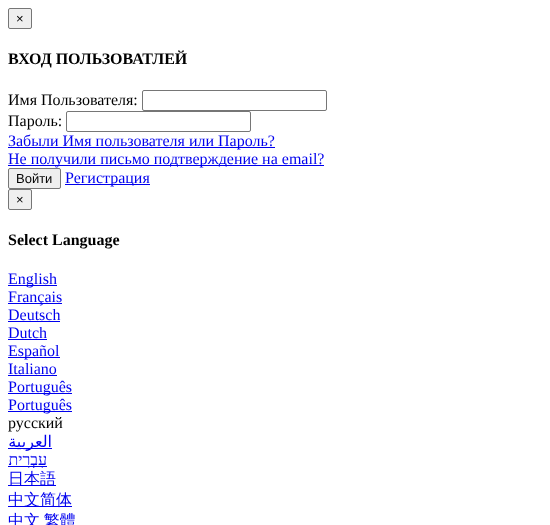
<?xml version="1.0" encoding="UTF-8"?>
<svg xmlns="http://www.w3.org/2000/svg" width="550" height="525">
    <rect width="100%" height="100%" fill="#FFFFFF"/>
    <rect x="8.5" y="8.5" width="23" height="20" rx="1.5" fill="#EFEFEF" stroke="#767676"/>
    <text x="16" y="23" font-family="Liberation Sans" font-size="13" fill="#000000">×</text>
    <text x="8" y="64" font-family="Liberation Serif" font-size="16" font-weight="700" fill="#000000">ВХОД ПОЛЬЗОВАТЛЕЙ</text>
    <text x="8" y="105" font-family="Liberation Serif" font-size="16" fill="#000000">Имя Пользователя:</text>
    <rect x="142.5" y="90.5" width="184" height="20" rx="1.5" fill="none" stroke="#767676"/>
    <text x="8" y="126" font-family="Liberation Serif" font-size="16" fill="#000000">Пароль:</text>
    <rect x="66.5" y="111.5" width="184" height="20" rx="1.5" fill="none" stroke="#767676"/>
    <rect x="8" y="147" width="267" height="1" fill="#0000EE"/>
    <text x="8" y="146" font-family="Liberation Serif" font-size="16" fill="#0000EE">Забыли Имя пользователя или Пароль?</text>
    <rect x="8" y="165" width="316" height="1" fill="#0000EE"/>
    <text x="8" y="164" font-family="Liberation Serif" font-size="16" fill="#0000EE">Не получили письмо подтверждение на email?</text>
    <rect x="8.5" y="168.5" width="52" height="20" rx="1.5" fill="#EFEFEF" stroke="#767676"/>
    <text x="16" y="183" font-family="Liberation Sans" font-size="13" fill="#000000">Войти</text>
    <rect x="65" y="184" width="85" height="1" fill="#0000EE"/>
    <text x="65" y="183" font-family="Liberation Serif" font-size="16" fill="#0000EE">Регистрация</text>
    <rect x="8.5" y="189.5" width="23" height="20" rx="1.5" fill="#EFEFEF" stroke="#767676"/>
    <text x="16" y="204" font-family="Liberation Sans" font-size="13" fill="#000000">×</text>
    <text x="8" y="245" font-family="Liberation Serif" font-size="16" font-weight="700" fill="#000000">Select Language</text>
    <rect x="8" y="285" width="49" height="1" fill="#0000EE"/>
    <text x="8" y="284" font-family="Liberation Serif" font-size="16" fill="#0000EE">English</text>
    <rect x="8" y="303" width="54" height="1" fill="#0000EE"/>
    <text font-family="Liberation Serif" font-size="16" fill="#0000EE">
        <tspan x="8" y="302">Français</tspan>
        <tspan x="8" y="320">Deutsch</tspan>
    </text>
    <rect x="8" y="321" width="52" height="1" fill="#0000EE"/>
    <text x="8" y="338" font-family="Liberation Serif" font-size="16" fill="#0000EE">Dutch</text>
    <rect x="8" y="339" width="39" height="1" fill="#0000EE"/>
    <rect x="8" y="357" width="52" height="1" fill="#0000EE"/>
    <text font-family="Liberation Serif" font-size="16" fill="#0000EE">
        <tspan x="8" y="356">Español</tspan>
        <tspan x="8" y="374">Italiano</tspan>
    </text>
    <rect x="8" y="375" width="49" height="1" fill="#0000EE"/>
    <rect x="8" y="393" width="64" height="1" fill="#0000EE"/>
    <text x="8" y="392" font-family="Liberation Serif" font-size="16" fill="#0000EE">Português</text>
    <rect x="8" y="411" width="64" height="1" fill="#0000EE"/>
    <text x="8" y="410" font-family="Liberation Serif" font-size="16" fill="#0000EE">Português</text>
    <text x="8" y="428" font-family="Liberation Serif" font-size="16" fill="#000000">русский</text>
    <rect x="8" y="448" width="44" height="1" fill="#0000EE"/>
    <text x="52" y="447" font-family="DejaVu Sans" font-size="16" direction="rtl" fill="#0000EE">العربية</text>
    <rect x="8" y="466" width="39" height="1" fill="#0000EE"/>
    <text x="47" y="465" font-family="Liberation Serif" font-size="16" direction="rtl" fill="#0000EE">עִבְרִית</text>
    <rect x="8" y="485" width="48" height="1" fill="#0000EE"/>
    <text x="8" y="484" font-family="WenQuanYi Zen Hei" font-size="16" font-weight="500" fill="#0000EE">日本語</text>
    <rect x="8" y="506" width="64" height="1" fill="#0000EE"/>
    <text font-family="WenQuanYi Zen Hei" font-size="16" font-weight="500" fill="#0000EE">
        <tspan x="8" y="505">中文简体</tspan>
        <tspan x="8" y="526" word-spacing="-1">中文 繁體</tspan>
    </text>
</svg>
